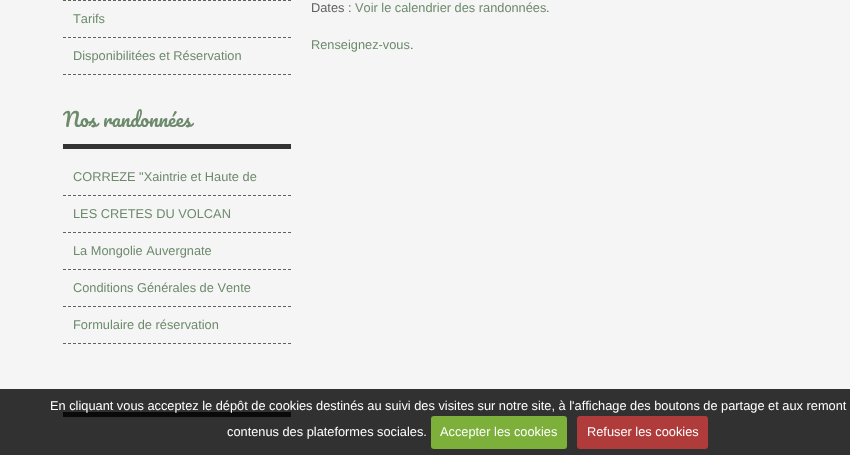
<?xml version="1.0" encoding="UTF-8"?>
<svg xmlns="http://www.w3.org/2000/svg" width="850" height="455">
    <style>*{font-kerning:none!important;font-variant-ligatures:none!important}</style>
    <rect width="100%" height="100%" fill="#F5F5F5"/>
    <path d="M 63 0.5 H 291" fill="none" stroke="#625F5F" stroke-dasharray="3 2"/>
    <path d="M 63 37.5 H 291" fill="none" stroke="#625F5F" stroke-dasharray="3 2"/>
    <text x="73" y="23" font-family="Liberation Sans" font-size="12.8" fill="#6D8A6C">Tarifs</text>
    <path d="M 63 74.5 H 291" fill="none" stroke="#625F5F" stroke-dasharray="3 2"/>
    <text x="73" y="60" font-family="Liberation Sans" font-size="12.8" fill="#6D8A6C">Disponibilitées et Réservation</text>
    <rect x="63" y="144" width="228" height="5" fill="#333333"/>
    <text x="63" y="127" word-spacing="1" font-family="Pacifico" font-size="19.25" fill="#6D8A6C">Nos randonnées</text>
    <path d="M 63 195.5 H 291" fill="none" stroke="#625F5F" stroke-dasharray="3 2"/>
    <text x="73" y="181" font-family="Liberation Sans" font-size="12.8" fill="#6D8A6C">CORREZE "Xaintrie et Haute de</text>
    <path d="M 63 232.5 H 291" fill="none" stroke="#625F5F" stroke-dasharray="3 2"/>
    <text x="73" y="218" font-family="Liberation Sans" font-size="12.8" fill="#6D8A6C">LES CRETES DU VOLCAN</text>
    <path d="M 63 269.5 H 291" fill="none" stroke="#625F5F" stroke-dasharray="3 2"/>
    <text x="73" y="255" font-family="Liberation Sans" font-size="12.8" fill="#6D8A6C">La Mongolie Auvergnate</text>
    <path d="M 63 306.5 H 291" fill="none" stroke="#625F5F" stroke-dasharray="3 2"/>
    <text x="73" y="292" font-family="Liberation Sans" font-size="12.8" fill="#6D8A6C">Conditions Générales de Vente</text>
    <path d="M 63 343.5 H 291" fill="none" stroke="#625F5F" stroke-dasharray="3 2"/>
    <text x="73" y="329" font-family="Liberation Sans" font-size="12.8" fill="#6D8A6C">Formulaire de réservation</text>
    <rect x="63" y="412" width="228" height="5" fill="#333333"/>
    <text x="311" y="12" font-family="Liberation Sans" font-size="12.8" fill="#625F5F">Dates :</text>
    <text x="355" y="12" font-family="Liberation Sans" font-size="12.8" fill="#6D8A6C">Voir le calendrier des randonnées</text>
    <text x="546" y="12" font-family="Liberation Sans" font-size="12.8" fill="#625F5F">.</text>
    <text x="311" y="49" font-family="Liberation Sans" font-size="12.8" fill="#6D8A6C">Renseignez-vous</text>
    <text x="410" y="49" font-family="Liberation Sans" font-size="12.8" fill="#625F5F">.</text>
    <rect x="0" y="389" width="850" height="66" fill="#000000" fill-opacity="0.8"/>
    <text x="50" y="410" font-family="Liberation Sans" font-size="12.8" fill="#FFFFFF">En cliquant vous acceptez le dépôt de cookies destinés au suivi des visites sur notre site, à l'affichage des boutons de partage et aux remont</text>
    <text x="227" y="436" font-family="Liberation Sans" font-size="12.8" fill="#FFFFFF">contenus des plateformes sociales.</text>
    <rect x="431" y="416" width="136" height="33" rx="3" fill="#7DAF3B"/>
    <text x="440" y="436" font-family="Liberation Sans" font-size="12.8" fill="#FFFFFF">Accepter les cookies</text>
    <rect x="577" y="416" width="131" height="33" rx="3" fill="#AF3B3B"/>
    <text x="587" y="436" font-family="Liberation Sans" font-size="12.8" fill="#FFFFFF">Refuser les cookies</text>
</svg>
